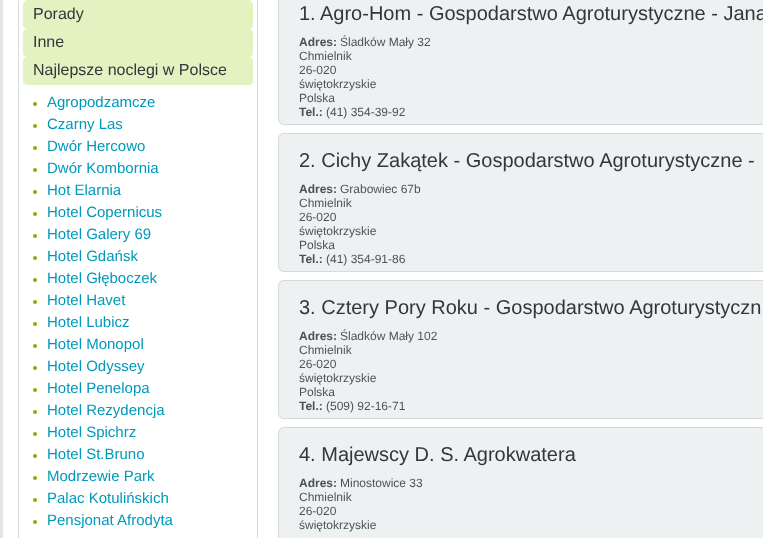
<?xml version="1.0" encoding="UTF-8"?>
<svg xmlns="http://www.w3.org/2000/svg" width="763" height="538">
    <rect width="100%" height="100%" fill="#FFFFFF"/>
    <rect x="0" y="0" width="3" height="538" fill="#E3E6E8"/>
    <rect x="18.5" y="-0.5" width="239" height="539" fill="none" stroke="#D7DADC"/>
    <rect x="23" y="0" width="230" height="1" fill="#E2F2C0"/>
    <image x="249" y="0" width="4" height="1" href="img_01.png"/>
    <image x="23" y="0" width="4" height="1" href="img_02.png"/>
    <rect x="27" y="1" width="222" height="84" fill="#E2F2C0"/>
    <image x="249" y="1" width="4" height="28" href="img_03.png"/>
    <image x="23" y="1" width="4" height="28" href="img_04.png"/>
    <text x="33" y="19" font-family="Liberation Sans" font-size="16" fill="#31373A">Porady</text>
    <image x="249" y="29" width="4" height="28" href="img_03.png"/>
    <image x="23" y="29" width="4" height="28" href="img_04.png"/>
    <text x="33" y="47" font-family="Liberation Sans" font-size="16" fill="#31373A">Inne</text>
    <image x="249" y="57" width="4" height="28" href="img_03.png"/>
    <image x="23" y="57" width="4" height="28" href="img_04.png"/>
    <text x="33" y="75" font-family="Liberation Sans" font-size="16" fill="#31373A">Najlepsze noclegi w Polsce</text>
    <circle cx="35" cy="104" r="2" fill="#7CB500"/>
    <text x="47" y="107" font-family="Liberation Sans" font-size="15" fill="#0099BB">Agropodzamcze</text>
    <circle cx="35" cy="126" r="2" fill="#7CB500"/>
    <text x="47" y="129" font-family="Liberation Sans" font-size="15" fill="#0099BB">Czarny Las</text>
    <circle cx="35" cy="148" r="2" fill="#7CB500"/>
    <text x="47" y="151" font-family="Liberation Sans" font-size="15" fill="#0099BB">Dwór Hercowo</text>
    <circle cx="35" cy="170" r="2" fill="#7CB500"/>
    <text x="47" y="173" font-family="Liberation Sans" font-size="15" fill="#0099BB">Dwór Kombornia</text>
    <circle cx="35" cy="192" r="2" fill="#7CB500"/>
    <text x="47" y="195" font-family="Liberation Sans" font-size="15" fill="#0099BB">Hot Elarnia</text>
    <circle cx="35" cy="214" r="2" fill="#7CB500"/>
    <text x="47" y="217" font-family="Liberation Sans" font-size="15" fill="#0099BB">Hotel Copernicus</text>
    <circle cx="35" cy="236" r="2" fill="#7CB500"/>
    <text x="47" y="239" font-family="Liberation Sans" font-size="15" fill="#0099BB">Hotel Galery 69</text>
    <circle cx="35" cy="258" r="2" fill="#7CB500"/>
    <text x="47" y="261" font-family="Liberation Sans" font-size="15" fill="#0099BB">Hotel Gdańsk</text>
    <circle cx="35" cy="280" r="2" fill="#7CB500"/>
    <text x="47" y="283" font-family="Liberation Sans" font-size="15" fill="#0099BB">Hotel Głęboczek</text>
    <circle cx="35" cy="302" r="2" fill="#7CB500"/>
    <text x="47" y="305" font-family="Liberation Sans" font-size="15" fill="#0099BB">Hotel Havet</text>
    <circle cx="35" cy="324" r="2" fill="#7CB500"/>
    <text x="47" y="327" font-family="Liberation Sans" font-size="15" fill="#0099BB">Hotel Lubicz</text>
    <circle cx="35" cy="346" r="2" fill="#7CB500"/>
    <text x="47" y="349" font-family="Liberation Sans" font-size="15" fill="#0099BB">Hotel Monopol</text>
    <circle cx="35" cy="368" r="2" fill="#7CB500"/>
    <text x="47" y="371" font-family="Liberation Sans" font-size="15" fill="#0099BB">Hotel Odyssey</text>
    <circle cx="35" cy="390" r="2" fill="#7CB500"/>
    <text x="47" y="393" font-family="Liberation Sans" font-size="15" fill="#0099BB">Hotel Penelopa</text>
    <circle cx="35" cy="412" r="2" fill="#7CB500"/>
    <text x="47" y="415" font-family="Liberation Sans" font-size="15" fill="#0099BB">Hotel Rezydencja</text>
    <circle cx="35" cy="434" r="2" fill="#7CB500"/>
    <text x="47" y="437" font-family="Liberation Sans" font-size="15" fill="#0099BB">Hotel Spichrz</text>
    <circle cx="35" cy="456" r="2" fill="#7CB500"/>
    <text x="47" y="459" font-family="Liberation Sans" font-size="15" fill="#0099BB">Hotel St.Bruno</text>
    <circle cx="35" cy="478" r="2" fill="#7CB500"/>
    <text x="47" y="481" font-family="Liberation Sans" font-size="15" fill="#0099BB">Modrzewie Park</text>
    <circle cx="35" cy="500" r="2" fill="#7CB500"/>
    <text x="47" y="503" font-family="Liberation Sans" font-size="15" fill="#0099BB">Palac Kotulińskich</text>
    <circle cx="35" cy="522" r="2" fill="#7CB500"/>
    <text x="47" y="525" font-family="Liberation Sans" font-size="15" fill="#0099BB">Pensjonat Afrodyta</text>
    <rect x="278.5" y="-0.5" width="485" height="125" fill="#EDF1F2" stroke="#D7DADC"/>
    <text x="299" y="20" font-family="Liberation Sans" font-size="20" fill="#31373A">1.</text>
    <text x="320" y="20" font-family="Liberation Sans" font-size="20" fill="#31373A">Agro-Hom - Gospodarstwo Agroturystyczne - Jana</text>
    <text x="299" y="46" font-family="Liberation Sans" font-size="12" font-weight="700" fill="#4C5356">Adres:</text>
    <text x="340" y="46" font-family="Liberation Sans" font-size="12" fill="#4C5356">Śladków Mały 32</text>
    <text font-family="Liberation Sans" font-size="12" fill="#4C5356">
        <tspan x="299" y="60">Chmielnik</tspan>
        <tspan x="299" y="74">26-020</tspan>
        <tspan x="299" y="88">świętokrzyskie</tspan>
        <tspan x="299" y="102">Polska</tspan>
    </text>
    <text x="299" y="116" font-family="Liberation Sans" font-size="12" font-weight="700" fill="#4C5356">Tel.:</text>
    <text x="326" y="116" font-family="Liberation Sans" font-size="12" fill="#4C5356">(41) 354-39-92</text>
    <image x="278" y="120" width="5" height="5" href="img_05.png"/>
    <rect x="278.5" y="133.5" width="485" height="138" fill="#EDF1F2" stroke="#D7DADC"/>
    <image x="278" y="133" width="5" height="5" href="img_06.png"/>
    <text x="299" y="167" font-family="Liberation Sans" font-size="20" fill="#31373A">2. Cichy Zakątek - Gospodarstwo Agroturystyczne -</text>
    <text x="299" y="193" font-family="Liberation Sans" font-size="12" font-weight="700" fill="#4C5356">Adres:</text>
    <text x="340" y="193" font-family="Liberation Sans" font-size="12" fill="#4C5356">Grabowiec 67b</text>
    <text font-family="Liberation Sans" font-size="12" fill="#4C5356">
        <tspan x="299" y="207">Chmielnik</tspan>
        <tspan x="299" y="221">26-020</tspan>
        <tspan x="299" y="235">świętokrzyskie</tspan>
        <tspan x="299" y="249">Polska</tspan>
    </text>
    <text x="299" y="263" font-family="Liberation Sans" font-size="12" font-weight="700" fill="#4C5356">Tel.:</text>
    <text x="326" y="263" font-family="Liberation Sans" font-size="12" fill="#4C5356">(41) 354-91-86</text>
    <image x="278" y="267" width="5" height="5" href="img_05.png"/>
    <rect x="278.5" y="280.5" width="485" height="138" fill="#EDF1F2" stroke="#D7DADC"/>
    <image x="278" y="280" width="5" height="5" href="img_06.png"/>
    <text x="299" y="314" font-family="Liberation Sans" font-size="20" fill="#31373A">3. Cztery Pory Roku - Gospodarstwo Agroturystyczn</text>
    <text x="299" y="340" font-family="Liberation Sans" font-size="12" font-weight="700" fill="#4C5356">Adres:</text>
    <text x="340" y="340" font-family="Liberation Sans" font-size="12" fill="#4C5356">Śladków Mały 102</text>
    <text font-family="Liberation Sans" font-size="12" fill="#4C5356">
        <tspan x="299" y="354">Chmielnik</tspan>
        <tspan x="299" y="368">26-020</tspan>
        <tspan x="299" y="382">świętokrzyskie</tspan>
        <tspan x="299" y="396">Polska</tspan>
    </text>
    <text x="299" y="410" font-family="Liberation Sans" font-size="12" font-weight="700" fill="#4C5356">Tel.:</text>
    <text x="326" y="410" font-family="Liberation Sans" font-size="12" fill="#4C5356">(509) 92-16-71</text>
    <image x="278" y="414" width="5" height="5" href="img_05.png"/>
    <rect x="278.5" y="427.5" width="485" height="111" fill="#EDF1F2" stroke="#D7DADC"/>
    <image x="278" y="427" width="5" height="5" href="img_06.png"/>
    <text x="299" y="461" font-family="Liberation Sans" font-size="20" fill="#31373A">4. Majewscy D. S. Agrokwatera</text>
    <text x="299" y="487" font-family="Liberation Sans" font-size="12" font-weight="700" fill="#4C5356">Adres:</text>
    <text x="340" y="487" font-family="Liberation Sans" font-size="12" fill="#4C5356">Minostowice 33</text>
    <text font-family="Liberation Sans" font-size="12" fill="#4C5356">
        <tspan x="299" y="501">Chmielnik</tspan>
        <tspan x="299" y="515">26-020</tspan>
        <tspan x="299" y="529">świętokrzyskie</tspan>
    </text>
</svg>
